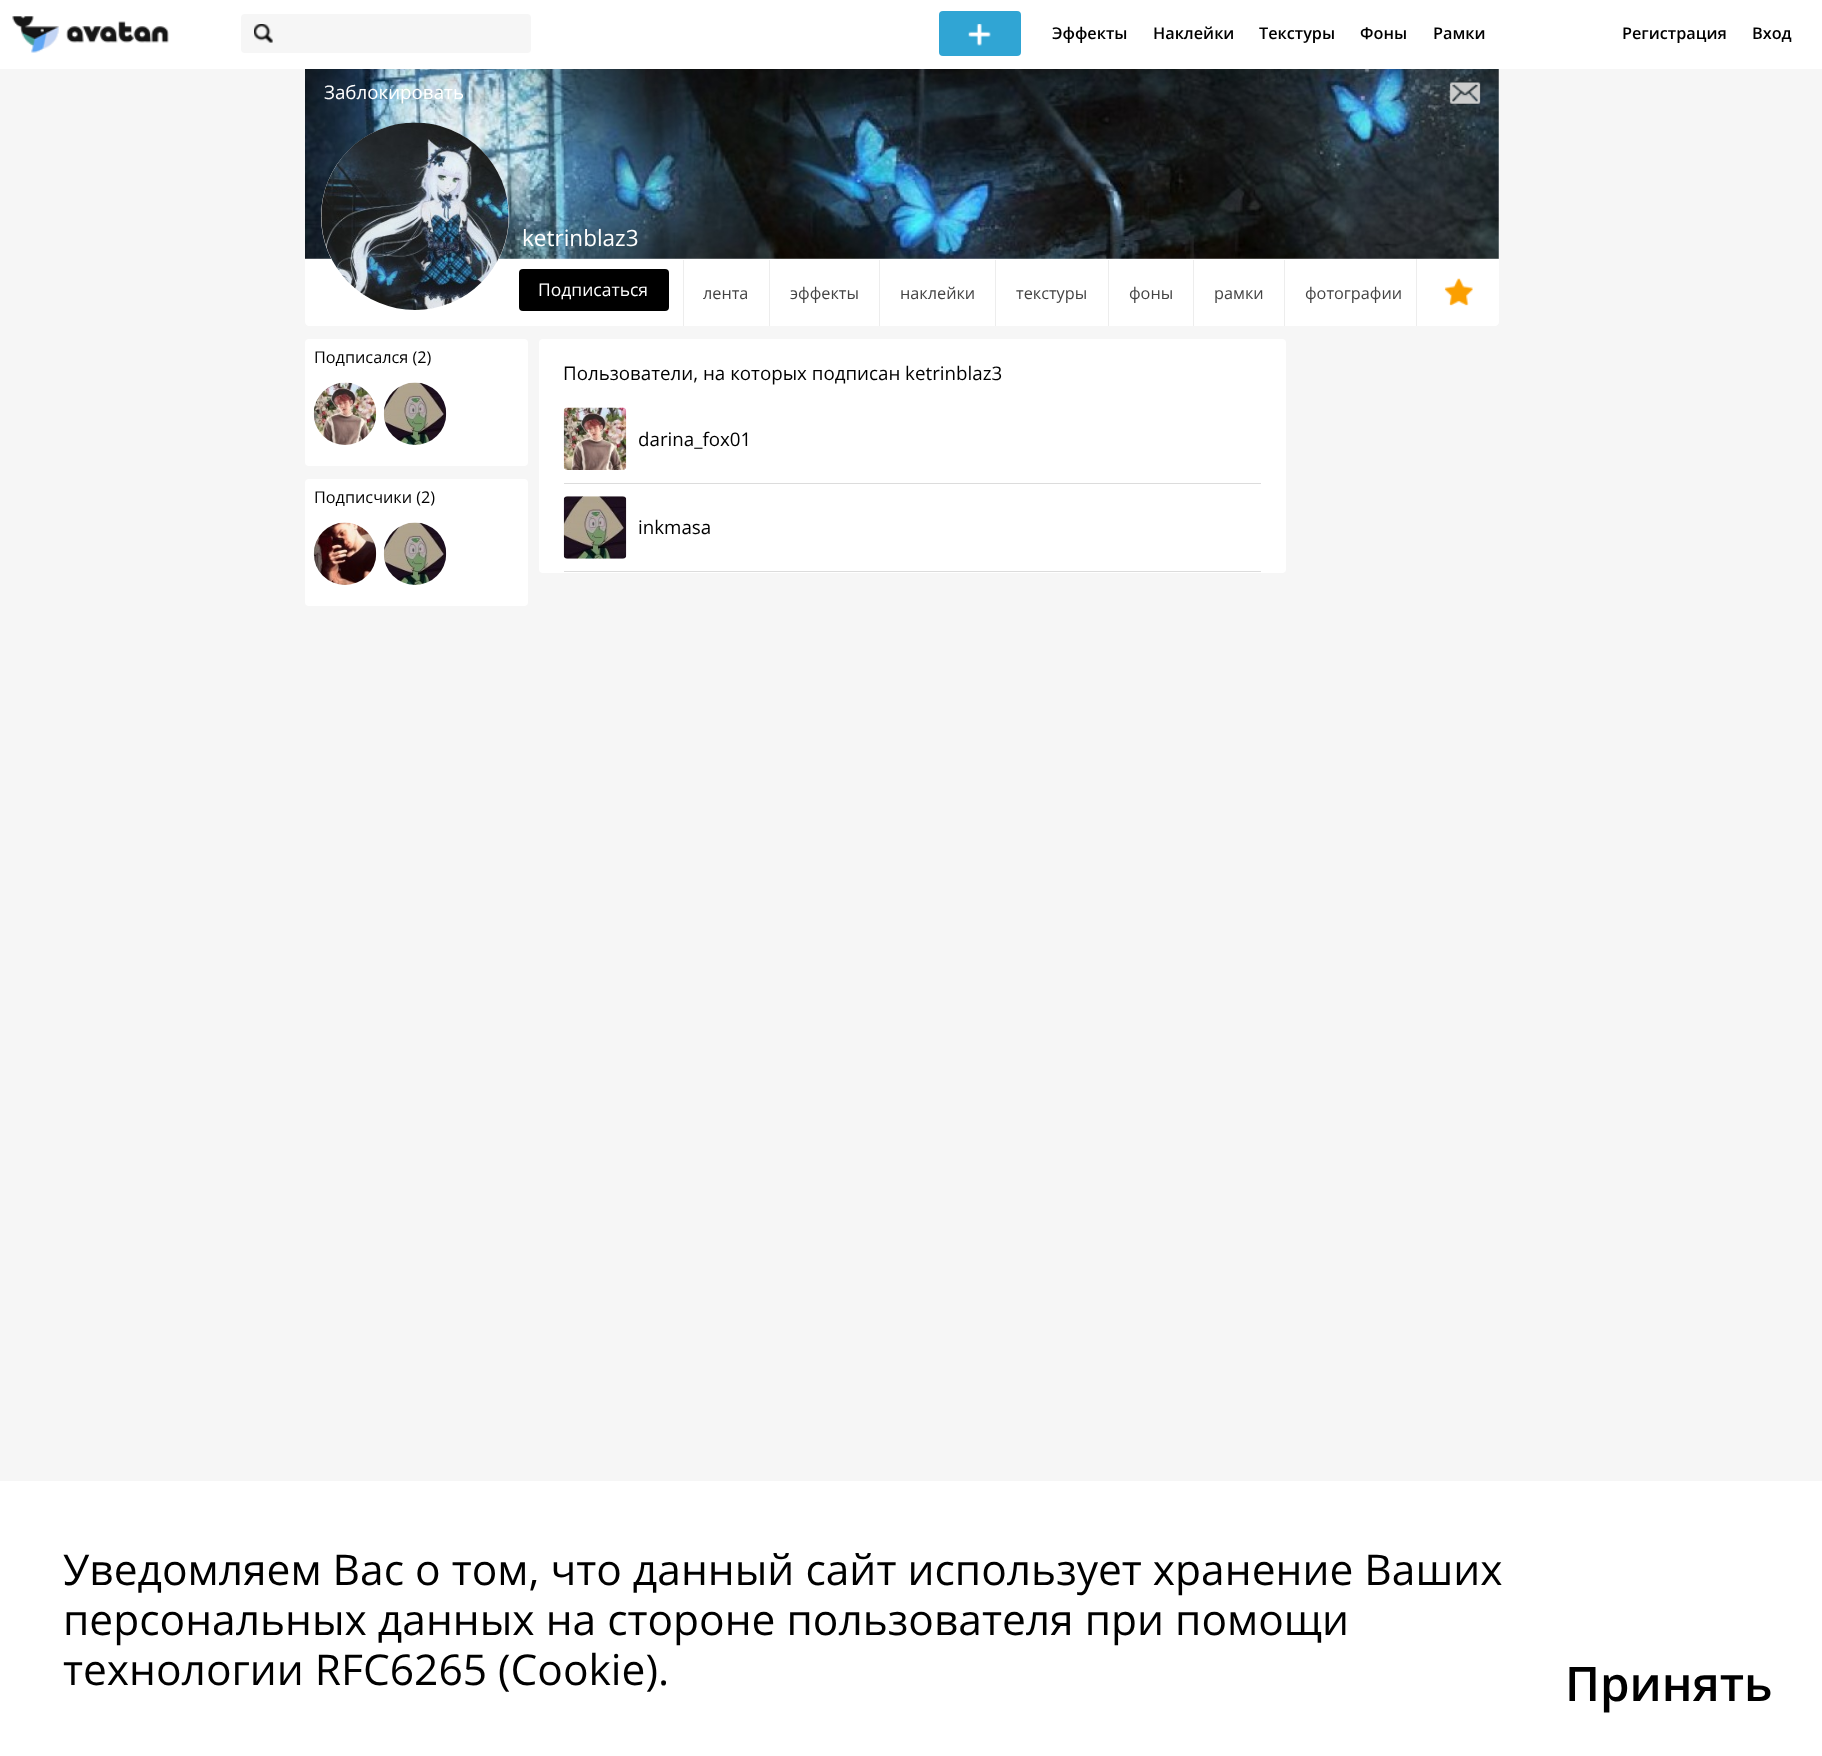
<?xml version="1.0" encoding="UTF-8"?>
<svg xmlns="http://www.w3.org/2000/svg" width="1822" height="1756">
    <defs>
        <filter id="blur1" x="-50%" y="-200%" width="200%" height="500%"><feGaussianBlur stdDeviation="0.5"/></filter>
    </defs>
    <rect width="100%" height="100%" fill="#F6F6F6"/>
    <rect x="305" y="69" width="1194" height="190" fill="#ECECEC"/>
    <image x="305" y="69" width="1194" height="190" href="img_04.png"/>
    <rect x="0" y="0" width="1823" height="69" fill="#000000" fill-opacity="0.3" filter="url(#blur1)"/>
    <rect x="0" y="0" width="1822" height="69" fill="#FFFFFF"/>
    <image x="12" y="16" width="157" height="37" href="img_01.png"/>
    <rect x="241" y="14" width="290" height="39" rx="4" fill="#F6F6F6"/>
    <image x="254" y="24" width="19" height="19" href="img_02.png"/>
    <rect x="939" y="11" width="82" height="45" rx="4" fill="#30A5D4"/>
    <image x="968" y="24" width="23" height="22" href="img_03.png"/>
    <text x="1052" y="39" font-family="Open Sans" font-size="16.25" font-weight="600" fill="#000000">Эффекты</text>
    <text x="1153" y="39" font-family="Open Sans" font-size="16.25" font-weight="600" fill="#000000">Наклейки</text>
    <text x="1259" y="39" font-family="Open Sans" font-size="16.25" font-weight="600" fill="#000000">Текстуры</text>
    <text x="1360" y="39" font-family="Open Sans" font-size="16.25" font-weight="600" fill="#000000">Фоны</text>
    <text x="1433" y="39" font-family="Open Sans" font-size="16.25" font-weight="600" fill="#000000">Рамки</text>
    <text x="1622" y="39" font-family="Open Sans" font-size="16.25" font-weight="600" fill="#000000">Регистрация</text>
    <text x="1752" y="39" font-family="Open Sans" font-size="16.25" font-weight="600" fill="#000000">Вход</text>
    <text x="324" y="99" font-family="Open Sans" font-size="18.75" fill="#FFFFFF">Заблокировать</text>
    <image x="1449" y="82" width="32" height="23" href="img_05.png"/>
    <path d="M 305 259 H 1499 V 322 C 1499 324 1497 326 1495 326 H 309 C 307 326 305 324 305 322 Z" fill="#FFFFFF"/>
    <rect x="321" y="123" width="188" height="187" rx="93.5" fill="#FFFFFF"/>
    <image x="321" y="122" width="188" height="188" href="img_06.png"/>
    <text x="522" y="246" font-family="Open Sans" font-size="22.5" fill="#FFFFFF">ketrinblaz3</text>
    <rect x="519" y="269" width="150" height="42" rx="4" fill="#000000"/>
    <text x="538" y="296" font-family="Open Sans" font-size="17.5" fill="#FFFFFF">Подписаться</text>
    <rect x="683" y="260" width="1" height="66" fill="#EDEDED"/>
    <text x="703" y="299" font-family="Open Sans" font-size="16.25" fill="#444444">лента</text>
    <rect x="769" y="260" width="1" height="66" fill="#EDEDED"/>
    <text x="790" y="299" font-family="Open Sans" font-size="16.25" fill="#444444">эффекты</text>
    <rect x="879" y="260" width="1" height="66" fill="#EDEDED"/>
    <text x="900" y="299" font-family="Open Sans" font-size="16.25" fill="#444444">наклейки</text>
    <rect x="995" y="260" width="1" height="66" fill="#EDEDED"/>
    <text x="1016" y="299" font-family="Open Sans" font-size="16.25" fill="#444444">текстуры</text>
    <rect x="1108" y="260" width="1" height="66" fill="#EDEDED"/>
    <text x="1129" y="299" font-family="Open Sans" font-size="16.25" fill="#444444">фоны</text>
    <rect x="1193" y="260" width="1" height="66" fill="#EDEDED"/>
    <text x="1214" y="299" font-family="Open Sans" font-size="16.25" fill="#444444">рамки</text>
    <rect x="1284" y="260" width="1" height="66" fill="#EDEDED"/>
    <text x="1305" y="299" font-family="Open Sans" font-size="16.25" fill="#444444">фотографии</text>
    <rect x="1416" y="259" width="1" height="67" fill="#EDEDED"/>
    <image x="1444" y="278" width="29" height="28" href="img_07.png"/>
    <rect x="305" y="339" width="223" height="127" rx="4" fill="#FFFFFF"/>
    <text x="314" y="363" font-family="Open Sans" font-size="16.25" fill="#000000">Подписался (2)</text>
    <image x="313" y="382" width="64" height="63" href="img_08.png"/>
    <image x="383" y="382" width="64" height="63" href="img_09.png"/>
    <rect x="305" y="479" width="223" height="127" rx="4" fill="#FFFFFF"/>
    <text x="314" y="503" font-family="Open Sans" font-size="16.25" fill="#000000">Подписчики (2)</text>
    <image x="313" y="522" width="64" height="63" href="img_10.png"/>
    <image x="383" y="522" width="64" height="63" href="img_11.png"/>
    <rect x="539" y="339" width="747" height="234" rx="4" fill="#FFFFFF"/>
    <text x="563" y="380" font-family="Open Sans" font-size="18.75" fill="#000000">Пользователи, на которых подписан ketrinblaz3</text>
    <rect x="564" y="483" width="697" height="1" fill="#DCDCDC"/>
    <image x="563" y="407" width="64" height="63" href="img_12.png"/>
    <text x="638" y="446" font-family="Open Sans" font-size="18.75" fill="#000000">darina_fox01</text>
    <rect x="564" y="571" width="697" height="1" fill="#DCDCDC"/>
    <image x="563" y="496" width="64" height="63" href="img_13.png"/>
    <text x="638" y="534" font-family="Open Sans" font-size="18.75" fill="#000000">inkmasa</text>
    <rect x="0" y="1481" width="1822" height="275" fill="#FFFFFF"/>
    <text font-family="Open Sans" font-size="42.5" fill="#000000">
        <tspan x="63" y="1585">Уведомляем Вас о том, что данный сайт использует хранение Ваших</tspan>
        <tspan x="63" y="1635">персональных данных на стороне пользователя при помощи</tspan>
        <tspan x="63" y="1685">технологии RFC6265 (Cookie).</tspan>
    </text>
    <text x="1565" y="1701" font-family="Open Sans" font-size="47.5" font-weight="600" fill="#000000">Принять</text>
</svg>
